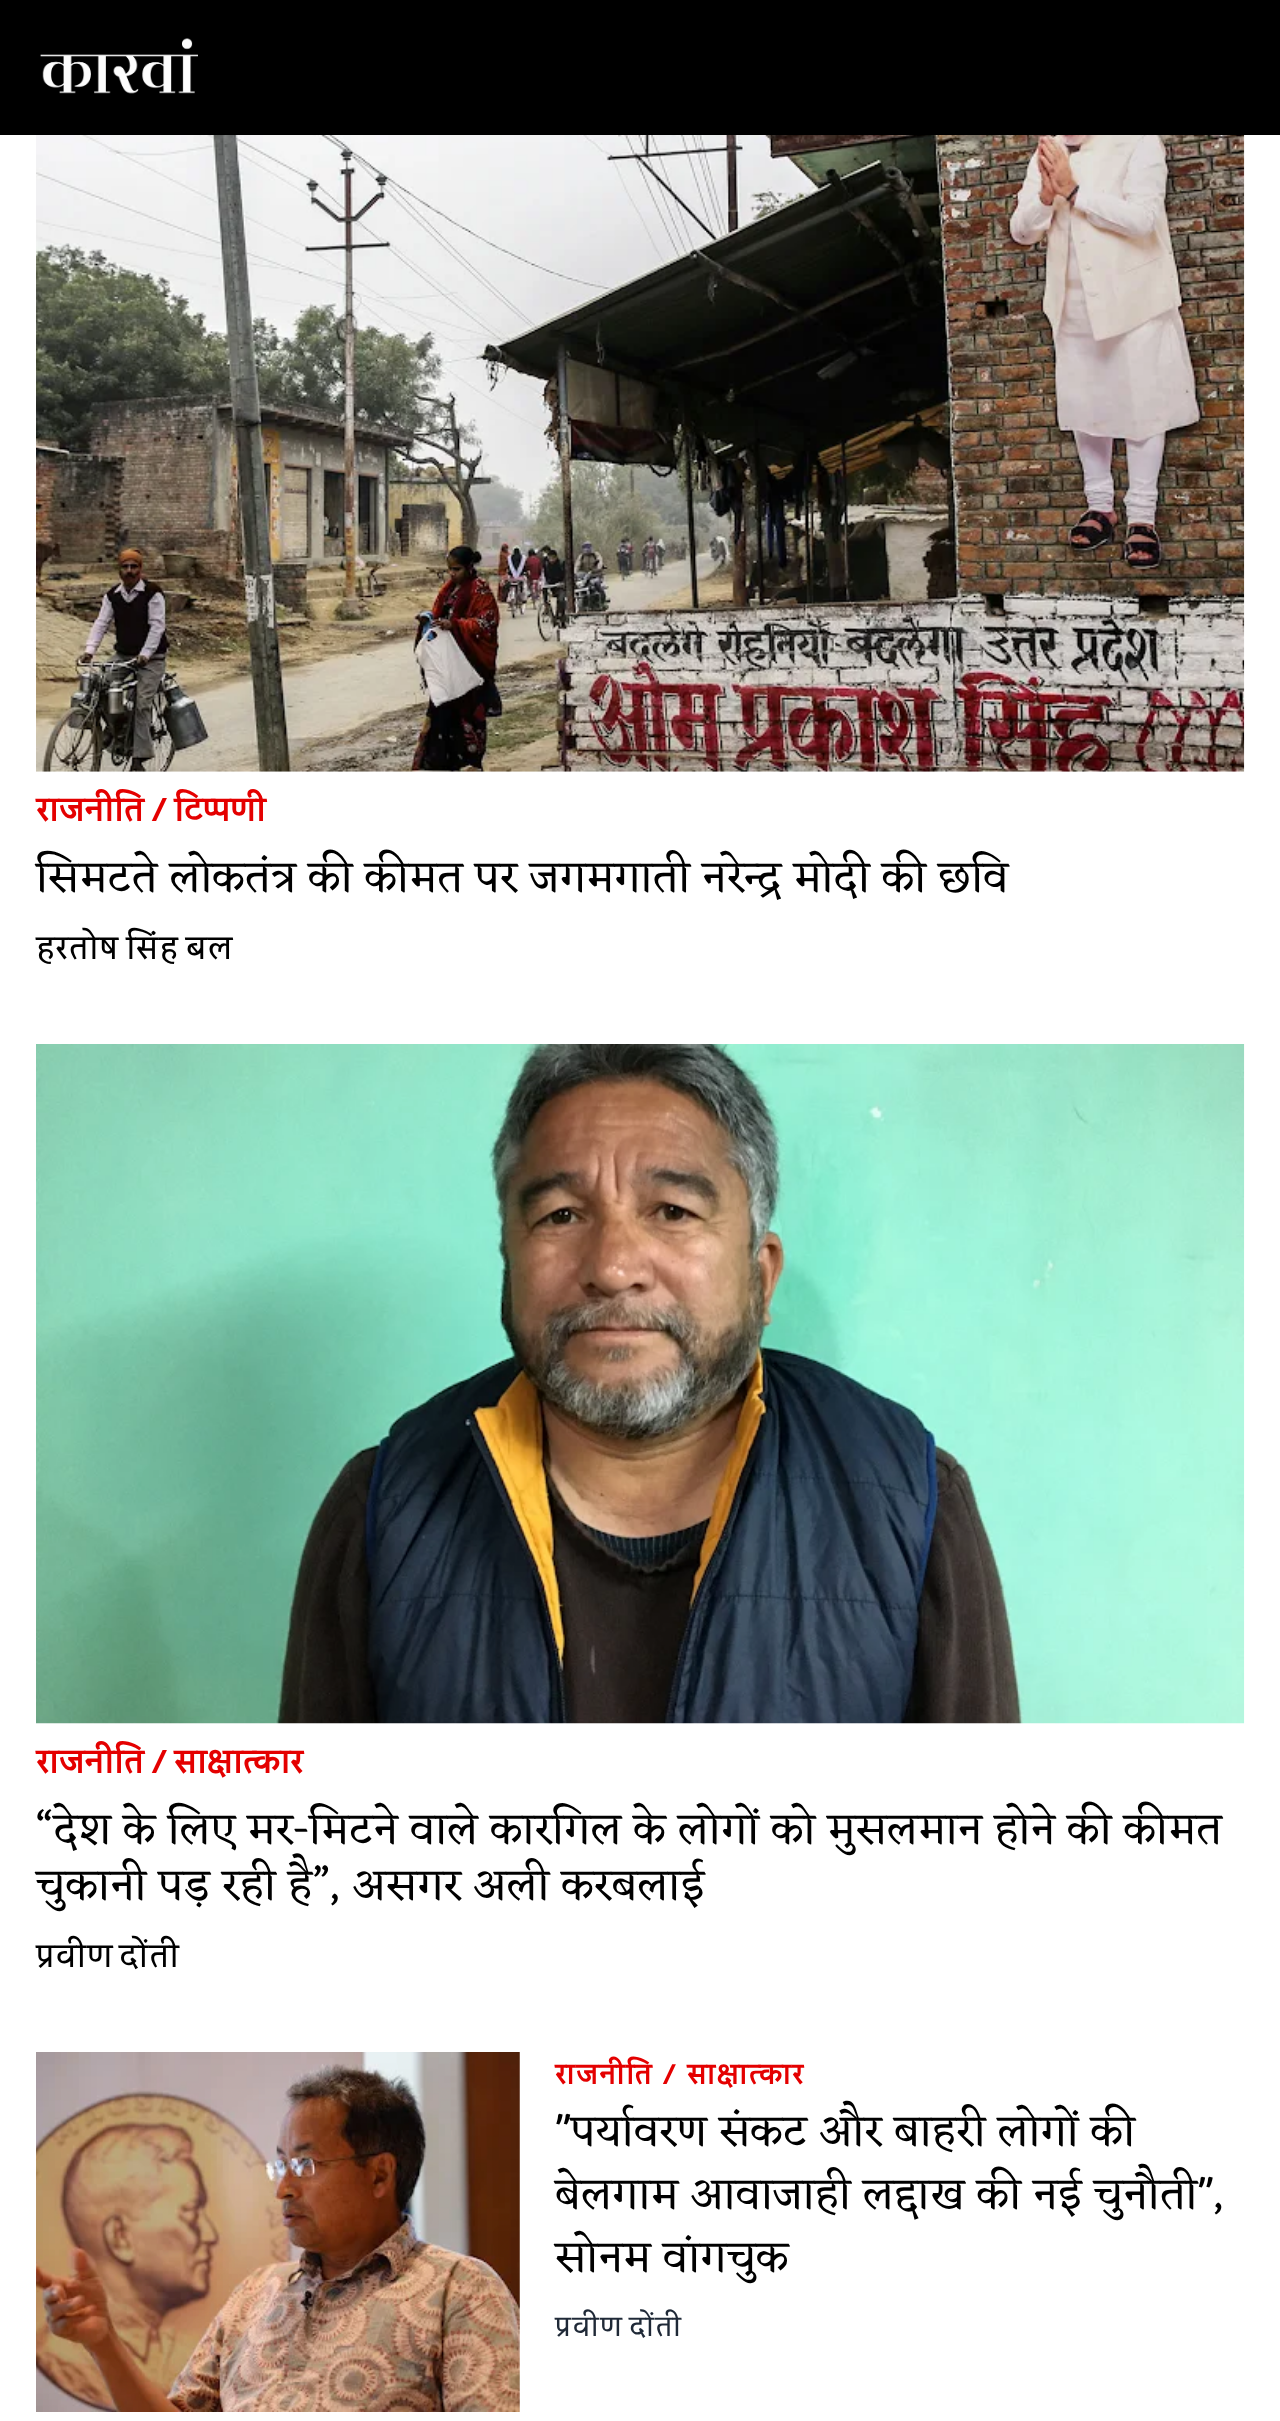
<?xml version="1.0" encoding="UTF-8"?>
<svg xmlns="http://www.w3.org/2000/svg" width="1280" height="2421">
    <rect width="100%" height="100%" fill="#FFFFFF"/>
    <rect x="0" y="0" width="1280" height="135" fill="#000000"/>
    <image x="40" y="38" width="158" height="56" href="img_01.png"/>
    <image x="36" y="135" width="1209" height="637" href="img_02.png"/>
    <text x="36" y="821" font-family="Kadwa" font-size="31.5" font-weight="700" fill="#E40000">राजनीति / टिप्पणी</text>
    <text x="36" y="891" font-family="Eczar" font-size="45" fill="#000000">सिमटते लोकतंत्र की कीमत पर जगमगाती नरेन्द्र मोदी की छवि</text>
    <text x="36" y="959" word-spacing="-1" font-family="Kadwa" font-size="31.5" letter-spacing="0.75" fill="#000000">हरतोष सिंह बल</text>
    <image x="36" y="1044" width="1209" height="680" href="img_03.png"/>
    <text x="36" y="1773" font-family="Kadwa" font-size="31.5" font-weight="700" fill="#E40000">राजनीति / साक्षात्कार</text>
    <text font-family="Eczar" font-size="45" fill="#000000">
        <tspan x="36" y="1843">“देश के लिए मर-मिटने वाले कारगिल के लोगों को मुसलमान होने की कीमत</tspan>
        <tspan x="36" y="1899">चुकानी पड़ रही है”, असगर अली करबलाई</tspan>
    </text>
    <text x="36" y="1967" word-spacing="-2" font-family="Kadwa" font-size="31.5" letter-spacing="0.75" fill="#000000">प्रवीण दोंती</text>
    <image x="36" y="2052" width="484" height="360" href="img_04.png"/>
    <text x="555" y="2084" font-family="Kadwa" font-size="27" font-weight="700" letter-spacing="1.4" fill="#E40000">राजनीति</text>
    <text x="662" y="2084" font-family="Kadwa" font-size="27" font-weight="700" letter-spacing="1.4" fill="#E40000">/</text>
    <text x="687" y="2084" font-family="Kadwa" font-size="27" font-weight="700" letter-spacing="1.4" fill="#E40000">साक्षात्कार</text>
    <text font-family="Eczar" font-size="45" fill="#000000">
        <tspan x="555" y="2145">"पर्यावरण संकट और बाहरी लोगों की</tspan>
        <tspan x="555" y="2208">बेलगाम आवाजाही लद्दाख की नई चुनौती",</tspan>
        <tspan x="555" y="2271">सोनम वांगचुक</tspan>
    </text>
    <text x="555" y="2336" word-spacing="-2" font-family="Kadwa" font-size="27" letter-spacing="1.4" fill="#1F2937">प्रवीण दोंती</text>
</svg>
